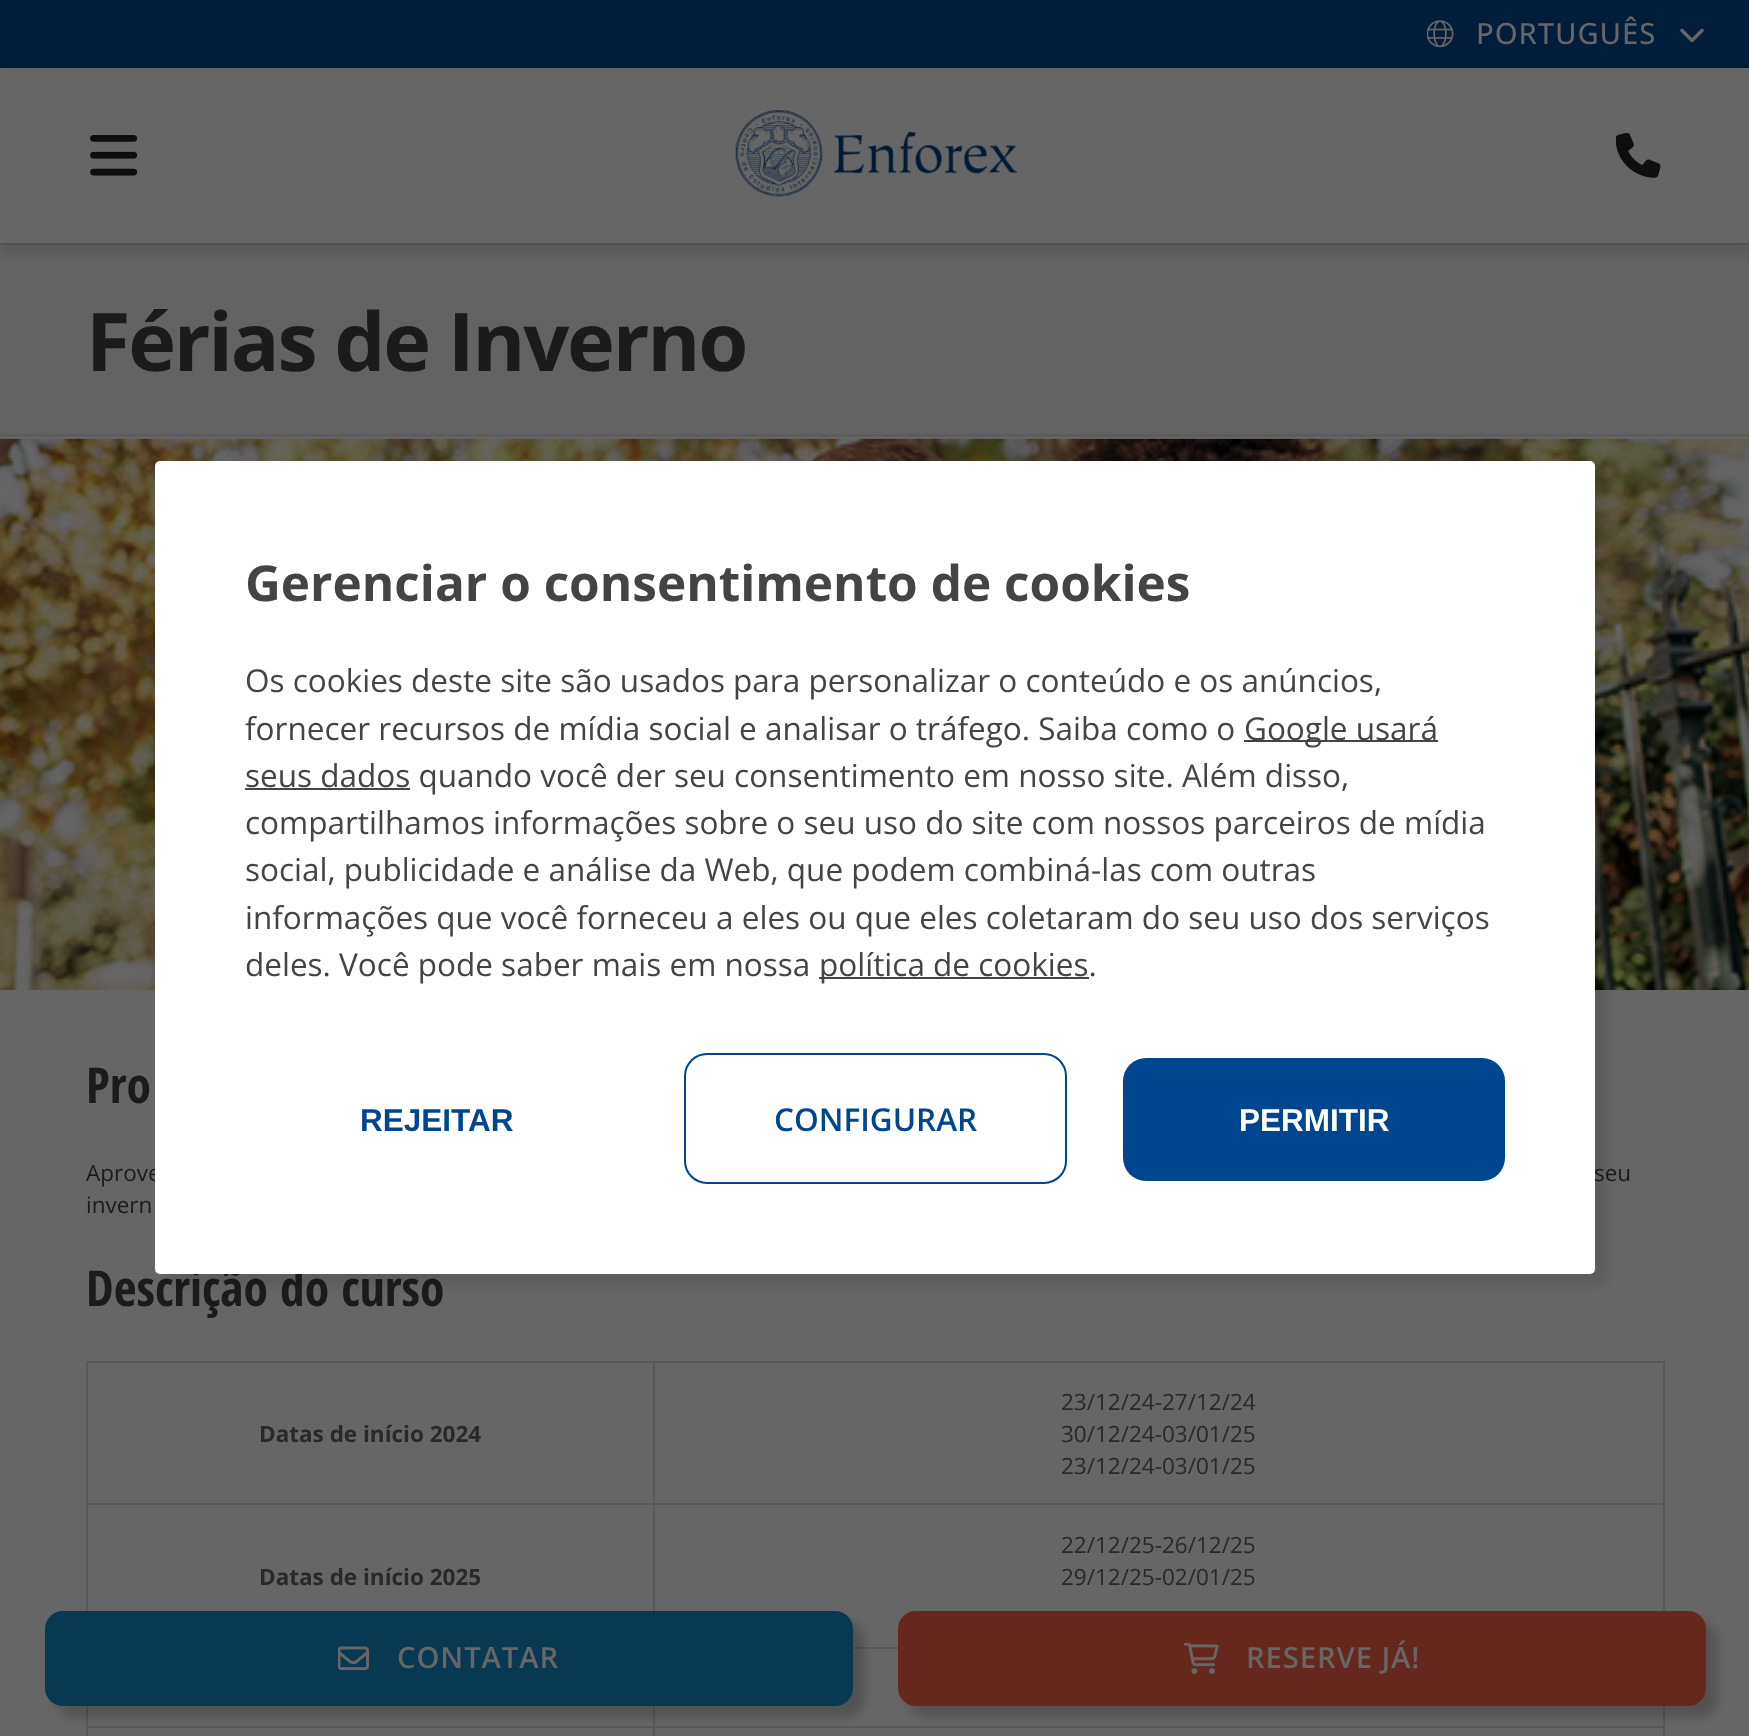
<?xml version="1.0" encoding="UTF-8"?>
<svg xmlns="http://www.w3.org/2000/svg" width="1749" height="1736">
    <defs>
        <filter id="blur1" x="-50%" y="-200%" width="200%" height="500%"><feGaussianBlur stdDeviation="5.5"/></filter>
    </defs>
    <rect width="100%" height="100%" fill="#666666"/>
    <rect x="0" y="243" width="1749" height="2" fill="#5A5A5A"/>
    <rect x="0" y="0" width="1749" height="68" fill="#001D3A"/>
    <image x="1427" y="20" width="27" height="27" href="img_01.png"/>
    <text x="1476" y="44" font-family="Open Sans" font-size="29.25" font-weight="500" letter-spacing="0.9" fill="#666666">PORTUGUÊS</text>
    <image x="1680" y="28" width="24" height="15" href="img_02.png"/>
    <rect x="0" y="245" width="1749" height="194" fill="#636363"/>
    <rect x="0" y="79" width="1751" height="175" fill="#000000" fill-opacity="0.1" filter="url(#blur1)"/>
    <rect x="0" y="75" width="1749" height="168" fill="#666666"/>
    <image x="90" y="135" width="47" height="41" href="img_03.png"/>
    <image x="735" y="110" width="282" height="87" href="img_04.png"/>
    <image x="1616" y="133" width="45" height="45" href="img_05.png"/>
    <rect x="86" y="1361" width="1579" height="2" fill="#585858"/>
    <rect x="86" y="1361" width="2" height="375" fill="#585858"/>
    <rect x="1663" y="1361" width="2" height="375" fill="#585858"/>
    <rect x="653" y="1503" width="1012" height="2" fill="#585858"/>
    <rect x="653" y="1503" width="2" height="108" fill="#585858"/>
    <rect x="853" y="1647" width="45" height="2" fill="#585858"/>
    <rect x="653" y="1726" width="1012" height="2" fill="#585858"/>
    <rect x="653" y="1726" width="2" height="10" fill="#585858"/>
    <rect x="86" y="1726" width="569" height="2" fill="#585858"/>
    <rect x="653" y="1706" width="2" height="22" fill="#585858"/>
    <rect x="56" y="1622" width="808" height="95" rx="18" fill="#000000" fill-opacity="0.2" filter="url(#blur1)"/>
    <rect x="45" y="1611" width="808" height="95" rx="18" fill="#083952"/>
    <image x="338" y="1646" width="31" height="25" href="img_06.png"/>
    <text x="397" y="1668" font-family="Open Sans" font-size="29.25" font-weight="600" letter-spacing="0.9" fill="#666666">CONTATAR</text>
    <rect x="909" y="1622" width="808" height="95" rx="18" fill="#000000" fill-opacity="0.2" filter="url(#blur1)"/>
    <rect x="898" y="1611" width="808" height="95" rx="18" fill="#66271C"/>
    <image x="1184" y="1643" width="35" height="31" href="img_07.png"/>
    <text x="1246" y="1668" font-family="Open Sans" font-size="29.25" font-weight="600" letter-spacing="0.9" fill="#666666">RESERVE JÁ!</text>
    <image x="0" y="434" width="1749" height="5" href="img_08.png"/>
    <text x="86" y="371" font-family="Open Sans" font-size="81" font-weight="700" letter-spacing="-2.25" fill="#1B1B1B">Férias de Inverno</text>
    <image x="0" y="438" width="1749" height="552" href="img_09.png"/>
    <text x="86" y="1103" font-family="Open Sans Condensed" font-size="49.5" font-weight="700" fill="#1B1B1B">Pro</text>
    <text x="86" y="1181" font-family="Open Sans" font-size="22.5" fill="#1B1B1B">Aprove</text>
    <text x="1594" y="1181" font-family="Open Sans" font-size="22.5" fill="#1B1B1B">seu</text>
    <text x="86" y="1213" font-family="Open Sans" font-size="22.5" fill="#1B1B1B">invern</text>
    <text x="86" y="1306" font-family="Open Sans Condensed" font-size="49.5" font-weight="700" fill="#1B1B1B">Descrição do curso</text>
    <text x="259" y="1442" font-family="Open Sans" font-size="22.5" font-weight="700" fill="#292929">Datas de início 2024</text>
    <rect x="86" y="1503" width="569" height="2" fill="#585858"/>
    <rect x="653" y="1361" width="2" height="144" fill="#585858"/>
    <text font-family="Open Sans" font-size="22.5" fill="#292929">
        <tspan x="1061" y="1410">23/12/24-27/12/24</tspan>
        <tspan x="1061" y="1442">30/12/24-03/01/25</tspan>
        <tspan x="1061" y="1474">23/12/24-03/01/25</tspan>
    </text>
    <text x="259" y="1585" font-family="Open Sans" font-size="22.5" font-weight="700" fill="#292929">Datas de início 2025</text>
    <text font-family="Open Sans" font-size="22.5" fill="#292929">
        <tspan x="1061" y="1553">22/12/25-26/12/25</tspan>
        <tspan x="1061" y="1585">29/12/25-02/01/25</tspan>
    </text>
    <rect x="167" y="473" width="1440" height="812" rx="5" fill="#000000" fill-opacity="0.1" filter="url(#blur1)"/>
    <rect x="155" y="461" width="1440" height="813" rx="5" fill="#FFFFFF"/>
    <text x="245" y="601" font-family="Open Sans" font-size="49.5" font-weight="700" fill="#444444">Gerenciar o consentimento de cookies</text>
    <text font-family="Open Sans" font-size="31.5" fill="#444444">
        <tspan x="245" y="692">Os cookies deste site são usados para personalizar o conteúdo e os anúncios,</tspan>
        <tspan x="245" y="740">fornecer recursos de mídia social e analisar o tráfego. Saiba como o</tspan>
    </text>
    <rect x="1244" y="740" width="194" height="2" fill="#444444"/>
    <text x="1244" y="740" font-family="Open Sans" font-size="31.5" fill="#444444">Google usará</text>
    <rect x="245" y="788" width="165" height="2" fill="#444444"/>
    <text font-family="Open Sans" font-size="31.5" fill="#444444">
        <tspan x="245" y="787">seus dados quando você der seu consentimento em nosso site. Além disso,</tspan>
        <tspan x="245" y="834">compartilhamos informações sobre o seu uso do site com nossos parceiros de mídia</tspan>
        <tspan x="245" y="881">social, publicidade e análise da Web, que podem combiná-las com outras</tspan>
        <tspan x="245" y="929">informações que você forneceu a eles ou que eles coletaram do seu uso dos serviços</tspan>
        <tspan x="245" y="976">deles. Você pode saber mais em nossa</tspan>
    </text>
    <rect x="819" y="977" width="270" height="2" fill="#444444"/>
    <text x="819" y="976" font-family="Open Sans" font-size="31.5" fill="#444444">política de cookies.</text>
    <text x="360" y="1131" font-family="Liberation Sans" font-size="31.5" font-weight="700" fill="#00468E">REJEITAR</text>
    <rect x="685" y="1054" width="381" height="129" rx="22" fill="none" stroke="#00468E" stroke-width="2"/>
    <text x="774" y="1131" font-family="Open Sans" font-size="31.5" font-weight="600" fill="#00468E">CONFIGURAR</text>
    <rect x="1123" y="1058" width="382" height="123" rx="23" fill="#00468E"/>
    <text x="1239" y="1131" font-family="Liberation Sans" font-size="31.5" font-weight="700" fill="#FFFFFF">PERMITIR</text>
</svg>
